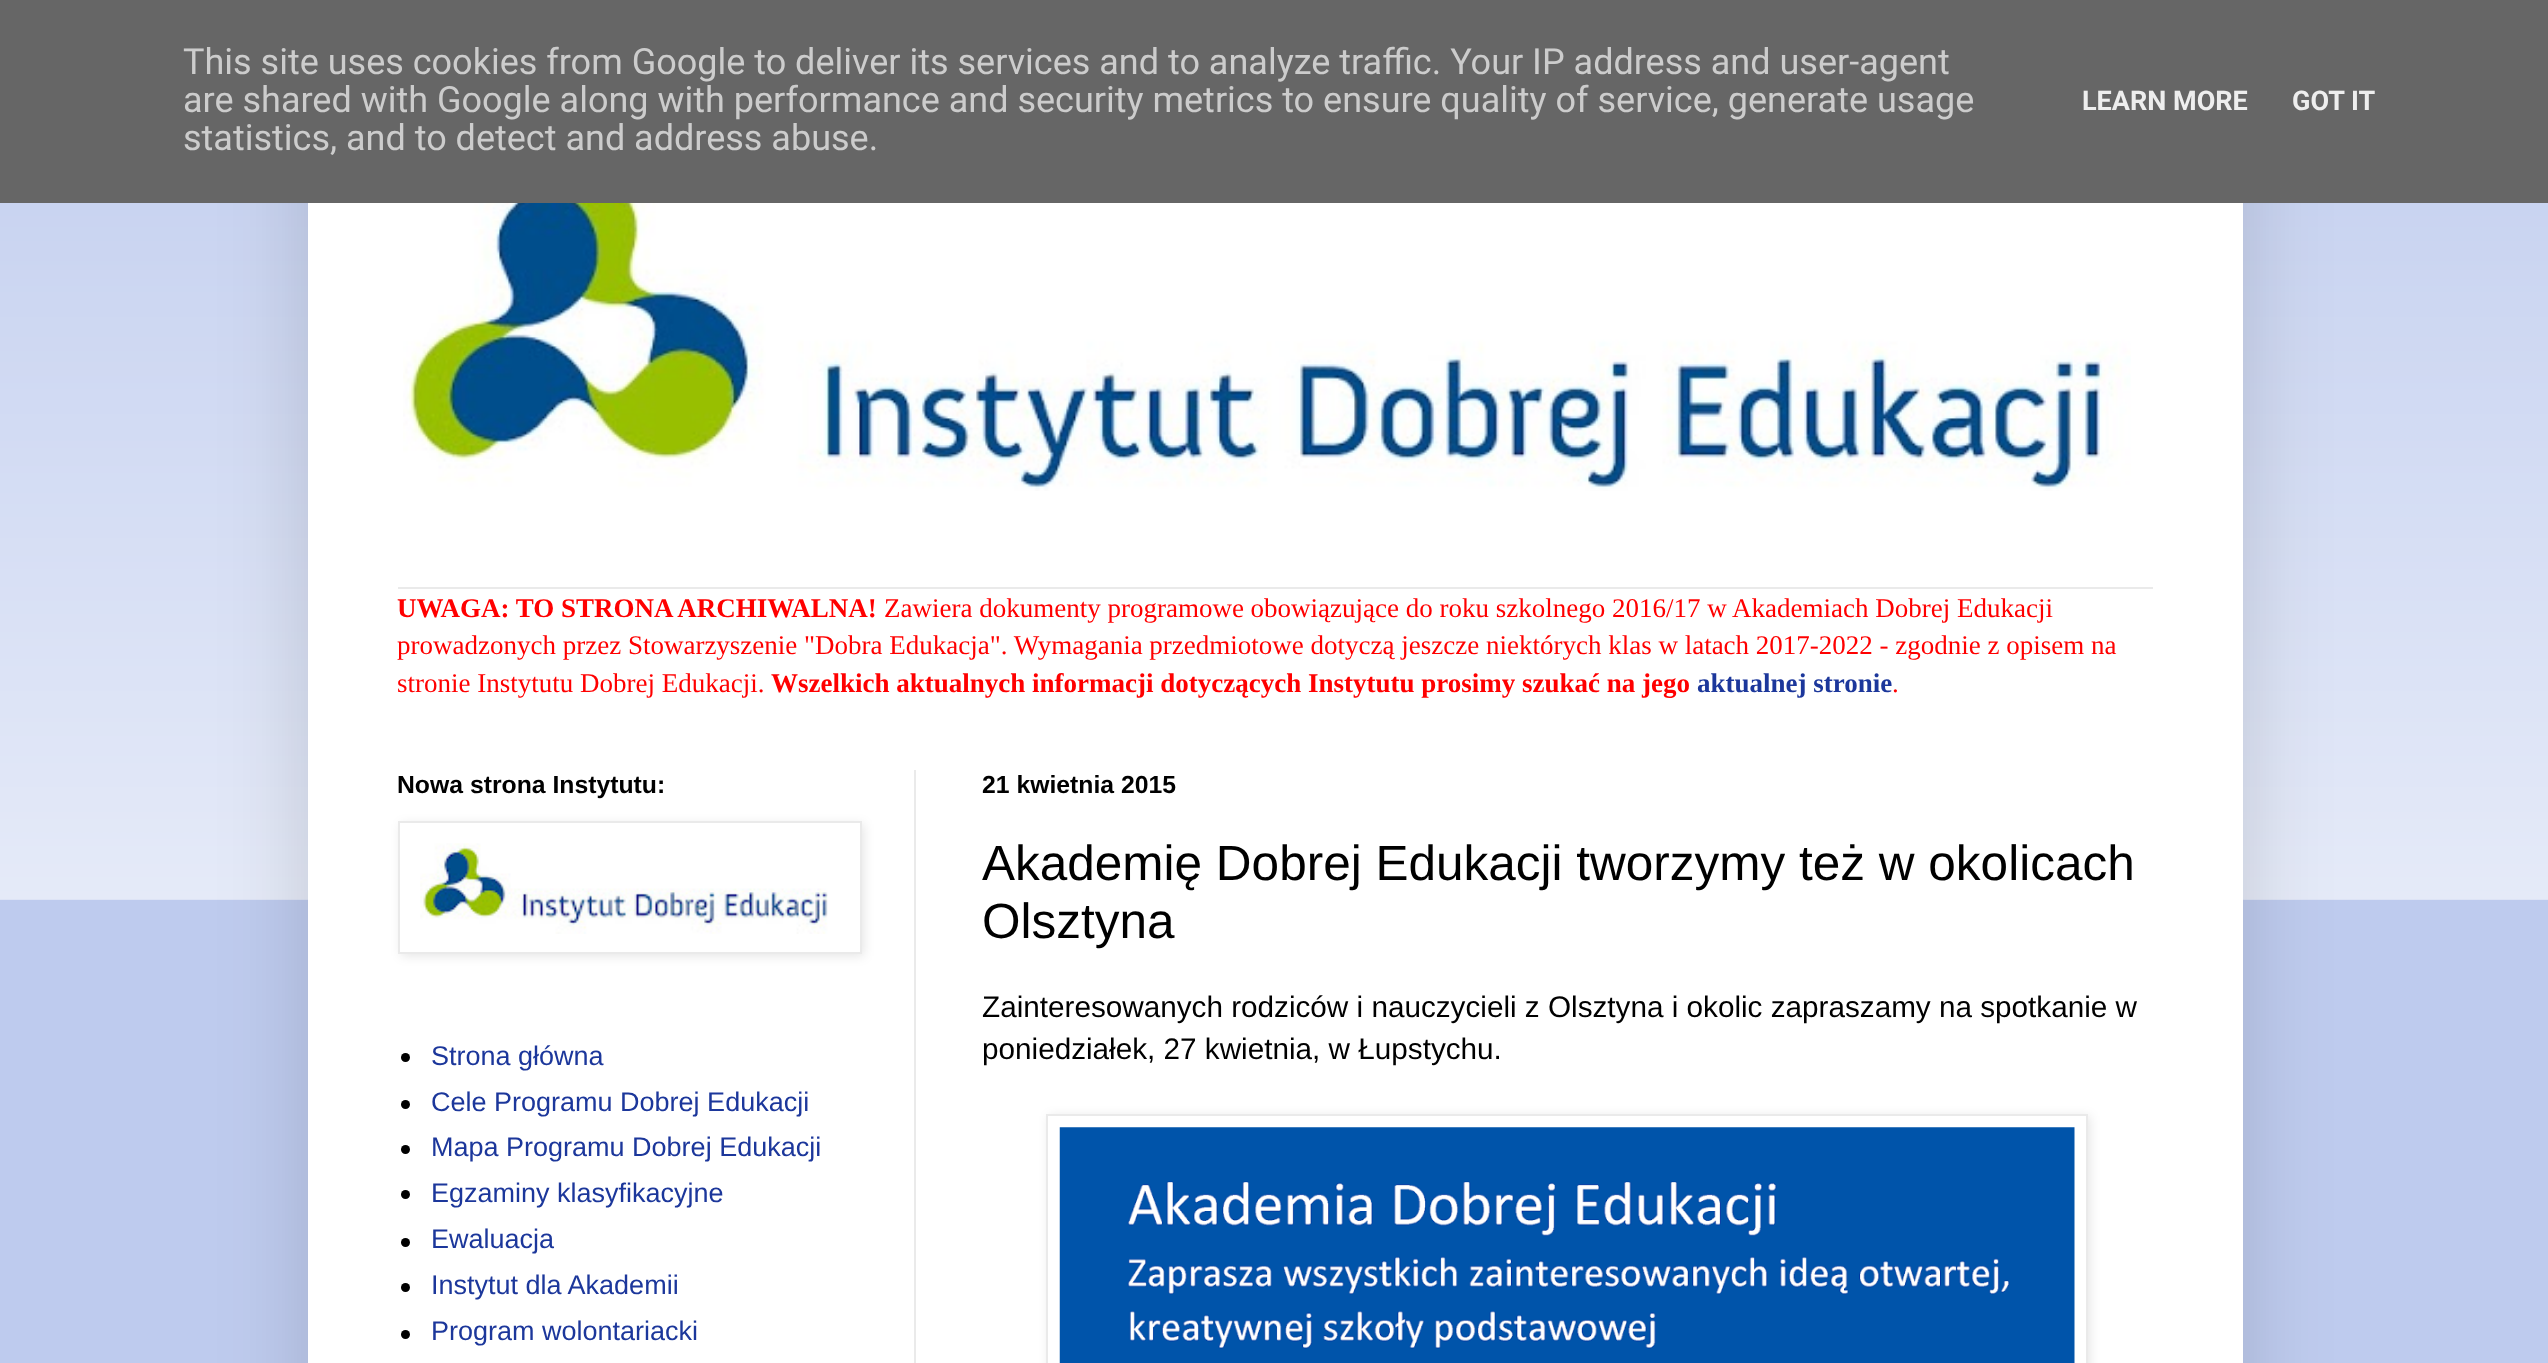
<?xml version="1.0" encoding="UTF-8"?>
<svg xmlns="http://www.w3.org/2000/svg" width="2548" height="1363">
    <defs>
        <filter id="blur1" x="-50%" y="-200%" width="200%" height="500%"><feGaussianBlur stdDeviation="45"/></filter>
        <filter id="blur2" x="-50%" y="-200%" width="200%" height="500%"><feGaussianBlur stdDeviation="5.5"/></filter>
    </defs>
    <rect width="100%" height="100%" fill="#BECBEE"/>
    <image x="0" y="203" width="2548" height="697" href="img_01.png"/>
    <rect x="308" y="68" width="1935" height="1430" fill="#000000" fill-opacity="0.15" filter="url(#blur1)"/>
    <rect x="0" y="0" width="2548" height="203" fill="#666666"/>
    <text font-family="Roboto" font-size="36" fill="#CCCCCC">
        <tspan x="183" y="74">This site uses cookies from Google to deliver its services and to analyze traffic. Your IP address and user-agent</tspan>
        <tspan x="183" y="112">are shared with Google along with performance and security metrics to ensure quality of service, generate usage</tspan>
        <tspan x="183" y="150">statistics, and to detect and address abuse.</tspan>
    </text>
    <text x="2082" y="110" font-family="Roboto" font-size="27" font-weight="700" fill="#EEEEEE">LEARN MORE</text>
    <text x="2292" y="110" font-family="Roboto" font-size="27" font-weight="700" fill="#EEEEEE">GOT IT</text>
    <rect x="308" y="203" width="1935" height="1160" fill="#FFFFFF"/>
    <image x="403" y="203" width="1728" height="288" href="img_02.png"/>
    <rect x="398" y="587" width="1755" height="2" fill="#EAEAEA"/>
    <text x="397" y="617" font-family="Liberation Serif" font-size="27" font-weight="700" fill="#FF0000">UWAGA: TO STRONA ARCHIWALNA!</text>
    <text x="884" y="617" font-family="Liberation Serif" font-size="27" fill="#FF0000">Zawiera dokumenty programowe obowiązujące do roku szkolnego 2016/17 w Akademiach Dobrej Edukacji</text>
    <text font-family="Liberation Serif" font-size="27" fill="#FF0000">
        <tspan x="397" y="654">prowadzonych przez Stowarzyszenie "Dobra Edukacja". Wymagania przedmiotowe dotyczą jeszcze niektórych klas w latach 2017-2022 - zgodnie z opisem na</tspan>
        <tspan x="397" y="692">stronie Instytutu Dobrej Edukacji.</tspan>
    </text>
    <text x="771" y="692" font-family="Liberation Serif" font-size="27" font-weight="700" fill="#FF0000">Wszelkich aktualnych informacji dotyczących Instytutu prosimy szukać na jego</text>
    <text x="1697" y="692" font-family="Liberation Serif" font-size="27" font-weight="700" fill="#1C379B">aktualnej stronie</text>
    <text x="1892" y="692" font-family="Liberation Serif" font-size="27" fill="#FF0000">.</text>
    <rect x="914" y="770" width="2" height="593" fill="#EAEAEA"/>
    <text x="397" y="793" font-family="Liberation Sans" font-size="24.75" font-weight="700" fill="#000000">Nowa strona Instytutu:</text>
    <rect x="401" y="824" width="463" height="132" fill="#000000" fill-opacity="0.1" filter="url(#blur2)"/>
    <rect x="399" y="822" width="462" height="131" fill="#FFFFFF" stroke="#EAEAEA" stroke-width="2"/>
    <image x="420" y="843" width="408" height="91" href="img_03.png"/>
    <circle cx="405.5" cy="1057.5" r="4.5" fill="#000000"/>
    <text x="431" y="1065" font-family="Liberation Sans" font-size="27" fill="#1C379B">Strona główna</text>
    <circle cx="405.5" cy="1104.5" r="4.5" fill="#000000"/>
    <text x="431" y="1111" font-family="Liberation Sans" font-size="27" fill="#1C379B">Cele Programu Dobrej Edukacji</text>
    <circle cx="405.5" cy="1149.5" r="4.5" fill="#000000"/>
    <text x="431" y="1156" font-family="Liberation Sans" font-size="27" fill="#1C379B">Mapa Programu Dobrej Edukacji</text>
    <circle cx="405.5" cy="1194.5" r="4.5" fill="#000000"/>
    <text x="431" y="1202" font-family="Liberation Sans" font-size="27" fill="#1C379B">Egzaminy klasyfikacyjne</text>
    <circle cx="405.5" cy="1242.5" r="4.5" fill="#000000"/>
    <text x="431" y="1248" font-family="Liberation Sans" font-size="27" fill="#1C379B">Ewaluacja</text>
    <circle cx="405.5" cy="1287.5" r="4.5" fill="#000000"/>
    <text x="431" y="1294" font-family="Liberation Sans" font-size="27" fill="#1C379B">Instytut dla Akademii</text>
    <circle cx="405.5" cy="1334.5" r="4.5" fill="#000000"/>
    <text x="431" y="1340" font-family="Liberation Sans" font-size="27" fill="#1C379B">Program wolontariacki</text>
    <text x="982" y="793" font-family="Liberation Sans" font-size="24.75" font-weight="700" fill="#000000">21 kwietnia 2015</text>
    <text font-family="Liberation Sans" font-size="49.5" fill="#000000">
        <tspan x="982" y="880">Akademię Dobrej Edukacji tworzymy też w okolicach</tspan>
        <tspan x="982" y="938">Olsztyna</tspan>
    </text>
    <text font-family="Liberation Sans" font-size="29.7" fill="#000000">
        <tspan x="982" y="1017">Zainteresowanych rodziców i nauczycieli z Olsztyna i okolic zapraszamy na spotkanie w</tspan>
        <tspan x="982" y="1059">poniedziałek, 27 kwietnia, w Łupstychu.</tspan>
    </text>
    <rect x="1049" y="1116" width="1041" height="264" fill="#000000" fill-opacity="0.1" filter="url(#blur2)"/>
    <rect x="1047" y="1115" width="1040" height="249" fill="#FFFFFF" stroke="#EAEAEA" stroke-width="2"/>
    <image x="1059" y="1127" width="1016" height="236" href="img_04.png"/>
</svg>
